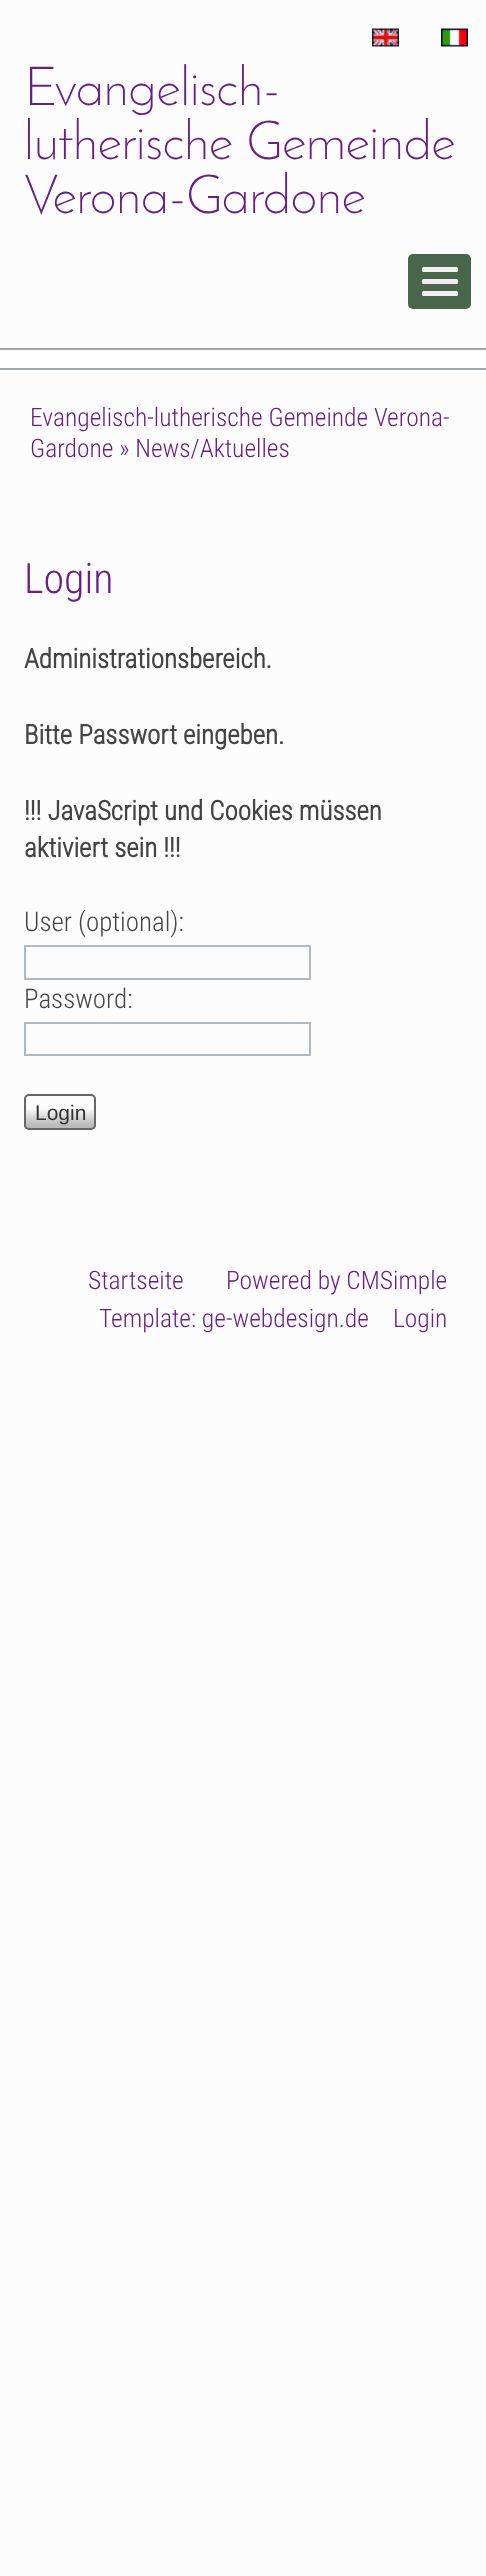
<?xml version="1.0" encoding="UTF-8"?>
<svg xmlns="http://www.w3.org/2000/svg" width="486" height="2576">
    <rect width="100%" height="100%" fill="#FDFCFD"/>
    <image x="372" y="28" width="27" height="19" href="img_01.png"/>
    <image x="441" y="28" width="27" height="19" href="img_02.png"/>
    <text font-family="Josefin Sans" font-size="54" font-weight="300" fill="#671F83">
        <tspan x="24" y="105">Evangelisch-</tspan>
        <tspan x="24" y="159">lutherische Gemeinde</tspan>
        <tspan x="24" y="213">Verona-Gardone</tspan>
    </text>
    <rect x="408" y="254" width="63" height="55" rx="5" fill="#49664C"/>
    <rect x="422" y="267" width="36" height="5" rx="1.5" fill="#EEEEEE"/>
    <rect x="422" y="279" width="36" height="5" rx="1.5" fill="#EEEEEE"/>
    <rect x="422" y="291" width="36" height="5" rx="1.5" fill="#EEEEEE"/>
    <rect x="0" y="350" width="486" height="18" fill="#FFFFFF"/>
    <rect x="0" y="348" width="486" height="2" fill="#A0A6A9"/>
    <rect x="0" y="368" width="486" height="2" fill="#A0A6A9"/>
    <text font-family="Roboto Condensed" font-size="25.5" font-weight="300" fill="#671F83">
        <tspan x="30" y="426">Evangelisch-lutherische Gemeinde Verona-</tspan>
        <tspan x="30" y="457">Gardone » News/Aktuelles</tspan>
    </text>
    <text x="24" y="593" font-family="Roboto Condensed" font-size="42" font-weight="300" fill="#671F83">Login</text>
    <text x="24" y="668" font-family="Roboto Condensed" font-size="27" font-weight="700" fill="#444444">Administrationsbereich.</text>
    <text x="24" y="744" font-family="Roboto Condensed" font-size="27" font-weight="700" fill="#444444">Bitte Passwort eingeben.</text>
    <text font-family="Roboto Condensed" font-size="27" font-weight="700" fill="#444444">
        <tspan x="24" y="820">!!! JavaScript und Cookies müssen</tspan>
        <tspan x="24" y="857">aktiviert sein !!!</tspan>
    </text>
    <text x="24" y="931" font-family="Roboto Condensed" font-size="27" font-weight="300" fill="#444444">User (optional):</text>
    <rect x="25" y="946" width="285" height="33" fill="none" stroke="#B0B9BF" stroke-width="2"/>
    <text x="24" y="1008" font-family="Roboto Condensed" font-size="27" font-weight="300" fill="#444444">Password:</text>
    <rect x="25" y="1023" width="285" height="32" fill="none" stroke="#B0B9BF" stroke-width="2"/>
    <image x="24" y="1109" width="72" height="21" href="img_03.png"/>
    <rect x="25" y="1095" width="70" height="34" rx="4" fill="none" stroke="#666666" stroke-width="2"/>
    <text x="35" y="1120" font-family="Liberation Sans" font-size="21" fill="#333333">Login</text>
    <text x="88" y="1289" font-family="Roboto Condensed" font-size="25.5" font-weight="300" fill="#671F83">Startseite</text>
    <text x="226" y="1289" font-family="Roboto Condensed" font-size="25.5" font-weight="300" fill="#671F83">Powered by CMSimple</text>
    <text x="99" y="1327" font-family="Roboto Condensed" font-size="25.5" font-weight="300" fill="#671F83">Template: ge-webdesign.de</text>
    <text x="393" y="1327" font-family="Roboto Condensed" font-size="25.5" font-weight="300" fill="#671F83">Login</text>
</svg>
